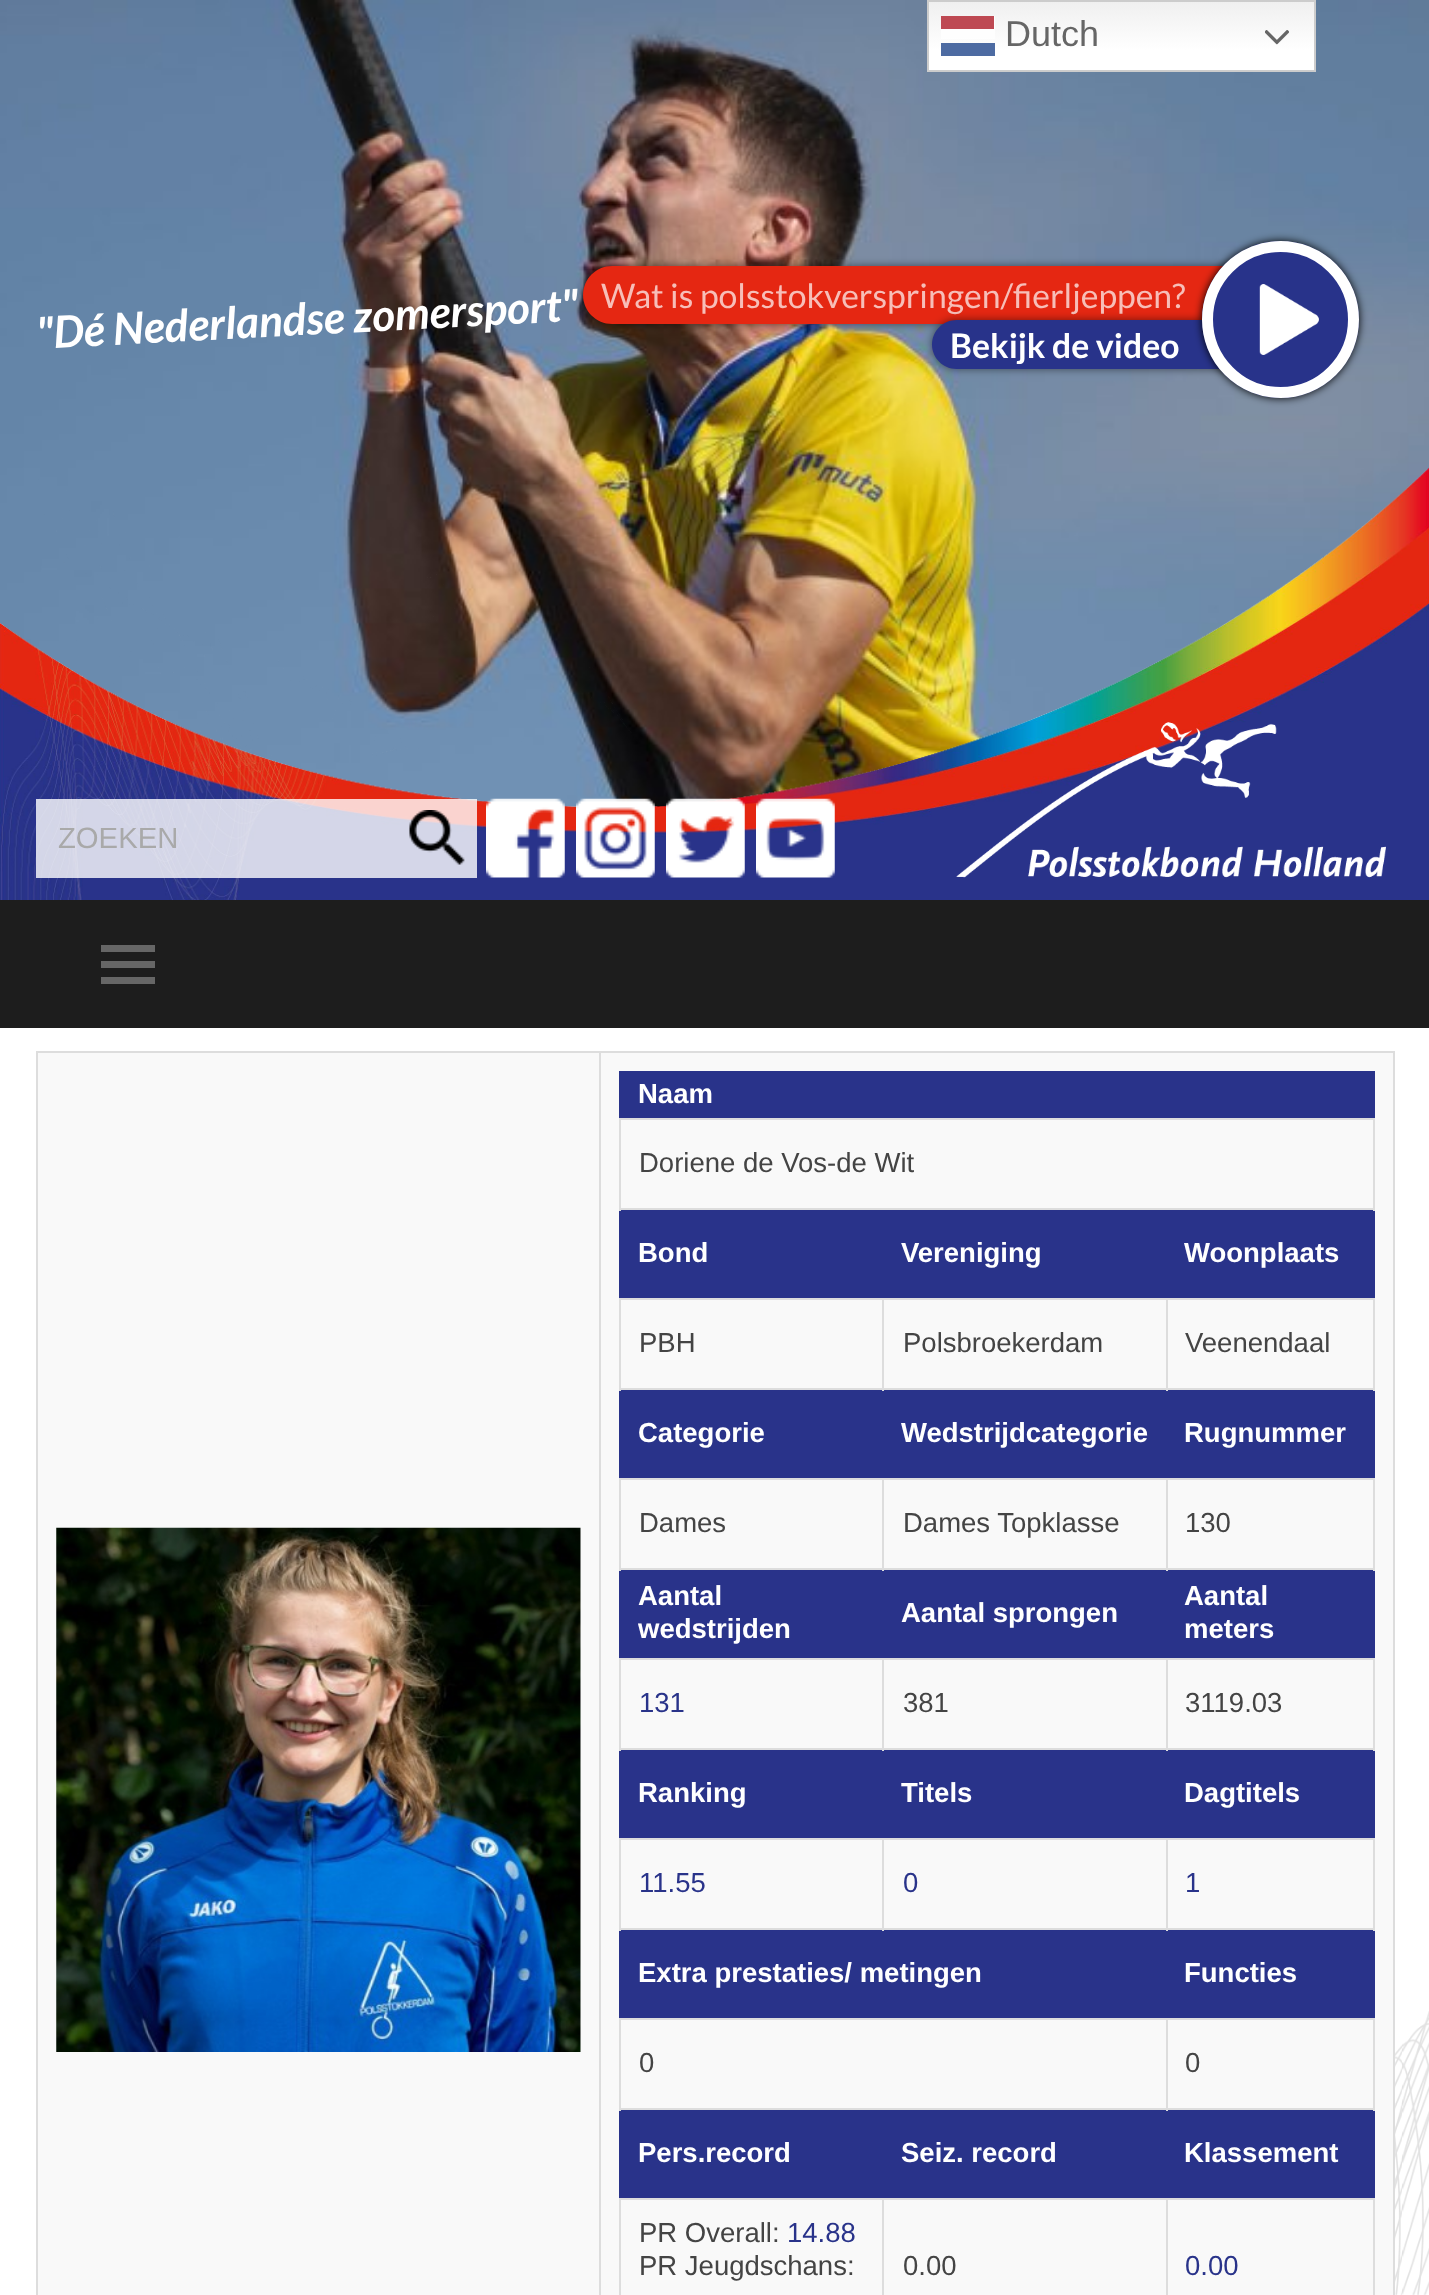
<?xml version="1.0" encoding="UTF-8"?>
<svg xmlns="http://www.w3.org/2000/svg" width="1429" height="2295">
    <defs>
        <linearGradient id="g1" gradientUnits="userSpaceOnUse" x1="1122" y1="0" x2="1122" y2="72"><stop offset="0" stop-color="#EFEFEF"/><stop offset="0.7" stop-color="#FFFFFF"/></linearGradient>
        <filter id="blur1" x="-50%" y="-200%" width="200%" height="500%"><feGaussianBlur stdDeviation="4.5"/></filter>
    </defs>
    <rect width="100%" height="100%" fill="#FFFFFF"/>
    <image x="1395" y="2011" width="34" height="284" href="img_01.png"/>
    <image x="0" y="0" width="1429" height="900" href="img_03.png"/>
    <rect x="929" y="2" width="385" height="68" fill="url(#g1)"/>
    <rect x="928" y="1" width="387" height="70" fill="none" stroke="#CCCCCC" stroke-width="2"/>
    <rect x="941" y="16" width="54" height="23" fill="#FFFFFF" fill-opacity="0.8"/>
    <rect x="941" y="16" width="53" height="13" fill="#BE4953"/>
    <text x="1005" y="46" font-family="Liberation Sans" font-size="36" fill="#666666">Dutch</text>
    <image x="1265" y="30" width="24" height="15" href="img_02.png"/>
    <rect x="941" y="43" width="54" height="13" fill="#4D6BA2"/>
    <text x="37" y="349" transform="rotate(-3 37 349)" font-family="Lato" font-size="44.1" font-weight="700" font-style="italic" fill="#FFFFFF">"Dé Nederlandse zomersport"</text>
    <rect x="36" y="799" width="362" height="79" fill="#FFFFFF" fill-opacity="0.8"/>
    <text x="58" y="848" font-family="Liberation Sans" font-size="29.25" fill="#A9A9A9">ZOEKEN</text>
    <rect x="398" y="799" width="79" height="79" fill="#FFFFFF" fill-opacity="0.8"/>
    <image x="409" y="810" width="56" height="55" href="img_04.png"/>
    <image x="486" y="798" width="79" height="80" href="img_05.png"/>
    <image x="576" y="798" width="79" height="80" href="img_06.png"/>
    <image x="666" y="798" width="79" height="80" href="img_07.png"/>
    <image x="756" y="798" width="79" height="80" href="img_08.png"/>
    <image x="956" y="722" width="430" height="156" href="img_09.png"/>
    <rect x="583" y="266" width="720" height="58" rx="29" fill="#000000" fill-opacity="0.5" filter="url(#blur1)"/>
    <path d="M 612 266 H 1303 V 324 H 612 C 596 324 583 311 583 295 C 583 279 596 266 612 266 Z" fill="#E52712"/>
    <text x="601" y="308" font-family="Lato" font-size="33.75" fill="#F7BEB8">Wat is polsstokverspringen/fierljeppen?</text>
    <rect x="932" y="320" width="337" height="49" rx="24.5" fill="#000000" fill-opacity="0.5" filter="url(#blur1)"/>
    <path d="M 956.5 320 H 1269 V 369 H 956.5 C 943 369 932 358 932 344.5 C 932 331 943 320 956.5 320 Z" fill="#28338A"/>
    <rect x="1202" y="241" width="157" height="157" rx="78.5" fill="#000000" filter="url(#blur1)"/>
    <circle cx="1280.5" cy="319.5" r="78.5" fill="#28338A"/>
    <image x="1259" y="284" width="60" height="71" href="img_10.png"/>
    <circle cx="1280.5" cy="319.5" r="73" fill="none" stroke="#FFFFFF" stroke-width="11"/>
    <text x="950" y="358" font-family="Lato" font-size="33.75" font-weight="700" fill="#FFFFFF">Bekijk de video</text>
    <rect x="0" y="900" width="1429" height="128" fill="#1D1D1D"/>
    <rect x="101" y="945" width="54" height="7" fill="#666666"/>
    <rect x="101" y="961" width="54" height="7" fill="#666666"/>
    <rect x="101" y="977" width="54" height="7" fill="#666666"/>
    <rect x="38" y="1053" width="561" height="1242" fill="#F9F9F9"/>
    <rect x="599" y="1051" width="796" height="2" fill="#DDDDDD"/>
    <rect x="599" y="1051" width="2" height="1244" fill="#DDDDDD"/>
    <rect x="36" y="1051" width="565" height="2" fill="#DDDDDD"/>
    <rect x="36" y="1051" width="2" height="1244" fill="#DDDDDD"/>
    <image x="56" y="1527" width="525" height="525" href="img_11.png"/>
    <rect x="601" y="1053" width="792" height="1242" fill="#F9F9F9"/>
    <rect x="1393" y="1051" width="2" height="1244" fill="#DDDDDD"/>
    <rect x="619" y="1071" width="756" height="47" fill="#29338A"/>
    <text x="638" y="1103" font-family="Liberation Sans" font-size="27.5" font-weight="700" fill="#FFFFFF">Naam</text>
    <rect x="619" y="1118" width="756" height="2" fill="#DDDDDD"/>
    <rect x="619" y="1210" width="756" height="88" fill="#29338A"/>
    <rect x="1373" y="1118" width="2" height="93" fill="#DDDDDD"/>
    <rect x="619" y="1208" width="756" height="2" fill="#DDDDDD"/>
    <rect x="619" y="1118" width="2" height="93" fill="#DDDDDD"/>
    <text x="639" y="1172" font-family="Liberation Sans" font-size="27.5" fill="#444444">Doriene de Vos-de Wit</text>
    <text x="638" y="1262" font-family="Liberation Sans" font-size="27.5" font-weight="700" fill="#FFFFFF">Bond</text>
    <text x="901" y="1262" font-family="Liberation Sans" font-size="27.5" font-weight="700" fill="#FFFFFF">Vereniging</text>
    <text x="1184" y="1262" font-family="Liberation Sans" font-size="27.5" font-weight="700" fill="#FFFFFF">Woonplaats</text>
    <rect x="1166" y="1298" width="209" height="2" fill="#DDDDDD"/>
    <rect x="619" y="1390" width="756" height="88" fill="#29338A"/>
    <rect x="1373" y="1298" width="2" height="93" fill="#DDDDDD"/>
    <rect x="1166" y="1388" width="209" height="2" fill="#DDDDDD"/>
    <rect x="1166" y="1298" width="2" height="93" fill="#DDDDDD"/>
    <rect x="882" y="1298" width="286" height="2" fill="#DDDDDD"/>
    <rect x="882" y="1388" width="286" height="2" fill="#DDDDDD"/>
    <rect x="882" y="1298" width="2" height="93" fill="#DDDDDD"/>
    <rect x="619" y="1298" width="265" height="2" fill="#DDDDDD"/>
    <rect x="619" y="1388" width="265" height="2" fill="#DDDDDD"/>
    <rect x="619" y="1298" width="2" height="93" fill="#DDDDDD"/>
    <text x="639" y="1352" font-family="Liberation Sans" font-size="27.5" fill="#444444">PBH</text>
    <text x="903" y="1352" font-family="Liberation Sans" font-size="27.5" fill="#444444">Polsbroekerdam</text>
    <text x="1185" y="1352" font-family="Liberation Sans" font-size="27.5" fill="#444444">Veenendaal</text>
    <text x="638" y="1442" font-family="Liberation Sans" font-size="27.5" font-weight="700" fill="#FFFFFF">Categorie</text>
    <text x="901" y="1442" font-family="Liberation Sans" font-size="27.5" font-weight="700" fill="#FFFFFF">Wedstrijdcategorie</text>
    <text x="1184" y="1442" font-family="Liberation Sans" font-size="27.5" font-weight="700" fill="#FFFFFF">Rugnummer</text>
    <rect x="1166" y="1478" width="209" height="2" fill="#DDDDDD"/>
    <rect x="619" y="1570" width="756" height="88" fill="#29338A"/>
    <rect x="1373" y="1478" width="2" height="93" fill="#DDDDDD"/>
    <rect x="1166" y="1568" width="209" height="2" fill="#DDDDDD"/>
    <rect x="1166" y="1478" width="2" height="93" fill="#DDDDDD"/>
    <rect x="882" y="1478" width="286" height="2" fill="#DDDDDD"/>
    <rect x="882" y="1568" width="286" height="2" fill="#DDDDDD"/>
    <rect x="882" y="1478" width="2" height="93" fill="#DDDDDD"/>
    <rect x="619" y="1478" width="265" height="2" fill="#DDDDDD"/>
    <rect x="619" y="1568" width="265" height="2" fill="#DDDDDD"/>
    <rect x="619" y="1478" width="2" height="93" fill="#DDDDDD"/>
    <text x="639" y="1532" font-family="Liberation Sans" font-size="27.5" fill="#444444">Dames</text>
    <text x="903" y="1532" font-family="Liberation Sans" font-size="27.5" fill="#444444">Dames Topklasse</text>
    <text x="1185" y="1532" font-family="Liberation Sans" font-size="27.5" fill="#444444">130</text>
    <text font-family="Liberation Sans" font-size="27.5" font-weight="700" fill="#FFFFFF">
        <tspan x="638" y="1605">Aantal</tspan>
        <tspan x="638" y="1638">wedstrijden</tspan>
    </text>
    <text x="901" y="1622" font-family="Liberation Sans" font-size="27.5" font-weight="700" fill="#FFFFFF">Aantal sprongen</text>
    <text font-family="Liberation Sans" font-size="27.5" font-weight="700" fill="#FFFFFF">
        <tspan x="1184" y="1605">Aantal</tspan>
        <tspan x="1184" y="1638">meters</tspan>
    </text>
    <rect x="1166" y="1658" width="209" height="2" fill="#DDDDDD"/>
    <rect x="619" y="1750" width="756" height="88" fill="#29338A"/>
    <rect x="1373" y="1658" width="2" height="93" fill="#DDDDDD"/>
    <rect x="1166" y="1748" width="209" height="2" fill="#DDDDDD"/>
    <rect x="1166" y="1658" width="2" height="93" fill="#DDDDDD"/>
    <rect x="882" y="1658" width="286" height="2" fill="#DDDDDD"/>
    <rect x="882" y="1748" width="286" height="2" fill="#DDDDDD"/>
    <rect x="882" y="1658" width="2" height="93" fill="#DDDDDD"/>
    <rect x="619" y="1658" width="265" height="2" fill="#DDDDDD"/>
    <rect x="619" y="1748" width="265" height="2" fill="#DDDDDD"/>
    <rect x="619" y="1658" width="2" height="93" fill="#DDDDDD"/>
    <text x="639" y="1712" font-family="Liberation Sans" font-size="27.5" fill="#29338A">131</text>
    <text x="903" y="1712" font-family="Liberation Sans" font-size="27.5" fill="#444444">381</text>
    <text x="1185" y="1712" font-family="Liberation Sans" font-size="27.5" fill="#444444">3119.03</text>
    <text x="638" y="1802" font-family="Liberation Sans" font-size="27.5" font-weight="700" fill="#FFFFFF">Ranking</text>
    <text x="901" y="1802" font-family="Liberation Sans" font-size="27.5" font-weight="700" fill="#FFFFFF">Titels</text>
    <text x="1184" y="1802" font-family="Liberation Sans" font-size="27.5" font-weight="700" fill="#FFFFFF">Dagtitels</text>
    <rect x="1166" y="1838" width="209" height="2" fill="#DDDDDD"/>
    <rect x="619" y="1930" width="756" height="88" fill="#29338A"/>
    <rect x="1373" y="1838" width="2" height="93" fill="#DDDDDD"/>
    <rect x="1166" y="1928" width="209" height="2" fill="#DDDDDD"/>
    <rect x="1166" y="1838" width="2" height="93" fill="#DDDDDD"/>
    <rect x="882" y="1838" width="286" height="2" fill="#DDDDDD"/>
    <rect x="882" y="1928" width="286" height="2" fill="#DDDDDD"/>
    <rect x="882" y="1838" width="2" height="93" fill="#DDDDDD"/>
    <rect x="619" y="1838" width="265" height="2" fill="#DDDDDD"/>
    <rect x="619" y="1928" width="265" height="2" fill="#DDDDDD"/>
    <rect x="619" y="1838" width="2" height="93" fill="#DDDDDD"/>
    <text x="639" y="1892" font-family="Liberation Sans" font-size="27.5" fill="#29338A">11.55</text>
    <text x="903" y="1892" font-family="Liberation Sans" font-size="27.5" fill="#29338A">0</text>
    <text x="1185" y="1892" font-family="Liberation Sans" font-size="27.5" fill="#29338A">1</text>
    <text x="638" y="1982" font-family="Liberation Sans" font-size="27.5" font-weight="700" fill="#FFFFFF">Extra prestaties/ metingen</text>
    <text x="1184" y="1982" font-family="Liberation Sans" font-size="27.5" font-weight="700" fill="#FFFFFF">Functies</text>
    <rect x="1166" y="2018" width="209" height="2" fill="#DDDDDD"/>
    <rect x="619" y="2110" width="756" height="88" fill="#29338A"/>
    <rect x="1373" y="2018" width="2" height="93" fill="#DDDDDD"/>
    <rect x="1166" y="2108" width="209" height="2" fill="#DDDDDD"/>
    <rect x="1166" y="2018" width="2" height="93" fill="#DDDDDD"/>
    <rect x="619" y="2018" width="549" height="2" fill="#DDDDDD"/>
    <rect x="619" y="2108" width="549" height="2" fill="#DDDDDD"/>
    <rect x="619" y="2018" width="2" height="93" fill="#DDDDDD"/>
    <text x="639" y="2072" font-family="Liberation Sans" font-size="27.5" fill="#444444">0</text>
    <text x="1185" y="2072" font-family="Liberation Sans" font-size="27.5" fill="#444444">0</text>
    <text x="638" y="2162" font-family="Liberation Sans" font-size="27.5" font-weight="700" fill="#FFFFFF">Pers.record</text>
    <text x="901" y="2162" font-family="Liberation Sans" font-size="27.5" font-weight="700" fill="#FFFFFF">Seiz. record</text>
    <text x="1184" y="2162" font-family="Liberation Sans" font-size="27.5" font-weight="700" fill="#FFFFFF">Klassement</text>
    <rect x="1166" y="2198" width="209" height="2" fill="#DDDDDD"/>
    <rect x="1166" y="2198" width="2" height="97" fill="#DDDDDD"/>
    <rect x="882" y="2198" width="286" height="2" fill="#DDDDDD"/>
    <rect x="882" y="2198" width="2" height="97" fill="#DDDDDD"/>
    <rect x="619" y="2198" width="265" height="2" fill="#DDDDDD"/>
    <rect x="619" y="2198" width="2" height="97" fill="#DDDDDD"/>
    <text x="639" y="2242" font-family="Liberation Sans" font-size="27.5" fill="#444444">PR Overall:</text>
    <text x="787" y="2242" font-family="Liberation Sans" font-size="27.5" fill="#29338A">14.88</text>
    <text x="639" y="2275" font-family="Liberation Sans" font-size="27.5" fill="#444444">PR Jeugdschans:</text>
    <text x="903" y="2275" font-family="Liberation Sans" font-size="27.5" fill="#444444">0.00</text>
    <rect x="1373" y="2198" width="2" height="97" fill="#DDDDDD"/>
    <text x="1185" y="2275" font-family="Liberation Sans" font-size="27.5" fill="#29338A">0.00</text>
</svg>
